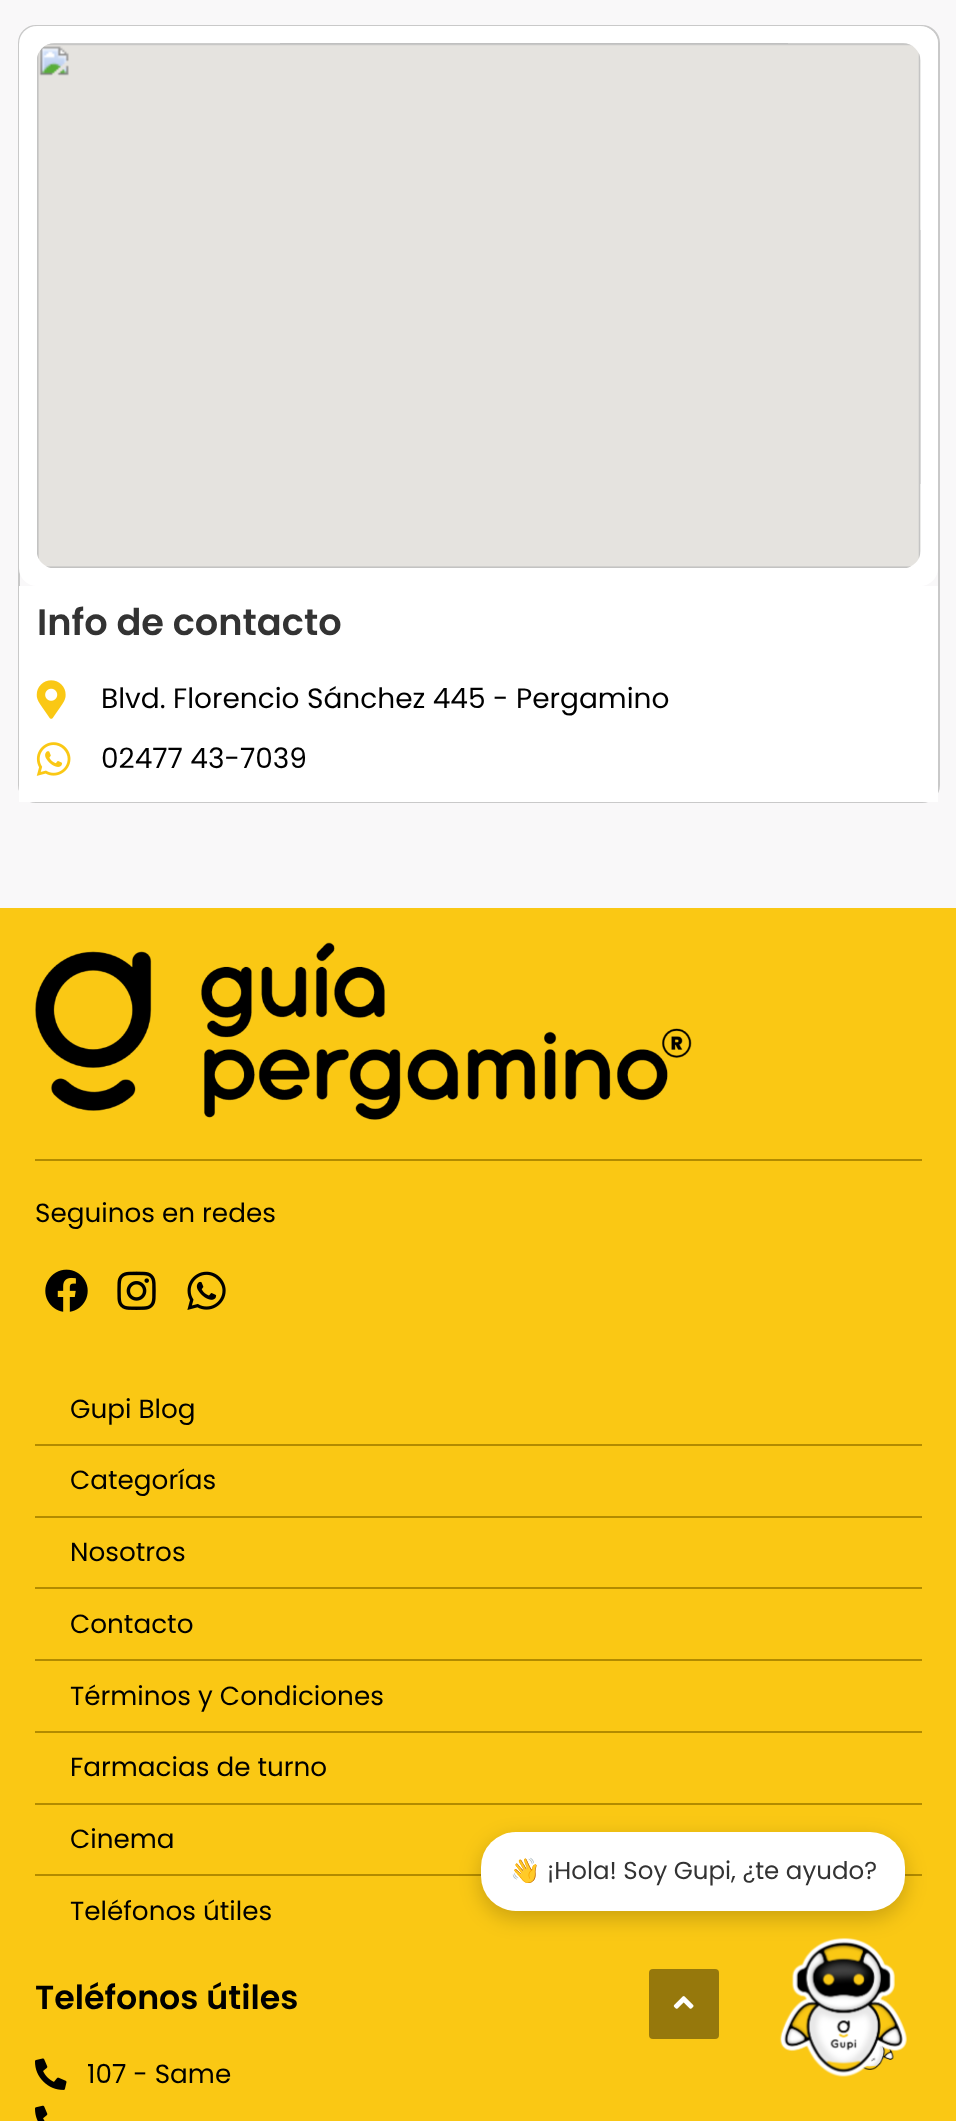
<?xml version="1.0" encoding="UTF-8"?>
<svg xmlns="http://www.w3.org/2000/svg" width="956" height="2121">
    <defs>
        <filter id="blur1" x="-50%" y="-200%" width="200%" height="500%"><feGaussianBlur stdDeviation="10.5"/></filter>
    </defs>
    <rect width="100%" height="100%" fill="#F9F8F9"/>
    <rect x="19" y="26" width="920" height="776" rx="17" fill="none" stroke="#C9C9C9" stroke-width="2"/>
    <rect x="19" y="26" width="919" height="560" rx="18" fill="#FFFFFF"/>
    <image x="37" y="43" width="884" height="525" href="img_01.png"/>
    <rect x="19" y="586" width="919" height="216" fill="#FFFFFF"/>
    <text x="37" y="635" font-family="Poppins" font-size="36.75" font-weight="600" fill="#333333">Info de contacto</text>
    <image x="36" y="680" width="30" height="39" href="img_02.png"/>
    <text x="101" y="708" font-family="Poppins" font-size="28" fill="#000000">Blvd. Florencio Sánchez 445 - Pergamino</text>
    <image x="36" y="742" width="35" height="34" href="img_03.png"/>
    <text x="101" y="768" font-family="Poppins" font-size="28" fill="#000000">02477 43-7039</text>
    <rect x="0" y="908" width="956" height="1213" fill="#FAC814"/>
    <image x="35" y="942" width="657" height="178" href="img_04.png"/>
    <rect x="35" y="1159" width="887" height="2" fill="#B28B00"/>
    <text x="35" y="1222" font-family="Poppins" font-size="26.25" fill="#000000">Seguinos en redes</text>
    <image x="45" y="1269" width="43" height="43" href="img_05.png"/>
    <image x="117" y="1271" width="39" height="39" href="img_06.png"/>
    <image x="187" y="1271" width="39" height="39" href="img_07.png"/>
    <rect x="35" y="1444" width="887" height="2" fill="#B28B00"/>
    <text x="70" y="1418" font-family="Poppins" font-size="26.25" fill="#000000">Gupi Blog</text>
    <rect x="35" y="1516" width="887" height="2" fill="#B28B00"/>
    <text x="70" y="1489" font-family="Poppins" font-size="26.25" fill="#000000">Categorías</text>
    <rect x="35" y="1587" width="887" height="2" fill="#B28B00"/>
    <text x="70" y="1561" font-family="Poppins" font-size="26.25" fill="#000000">Nosotros</text>
    <rect x="35" y="1659" width="887" height="2" fill="#B28B00"/>
    <text x="70" y="1633" font-family="Poppins" font-size="26.25" fill="#000000">Contacto</text>
    <rect x="35" y="1731" width="887" height="2" fill="#B28B00"/>
    <text x="70" y="1705" font-family="Poppins" font-size="26.25" fill="#000000">Términos y Condiciones</text>
    <rect x="35" y="1803" width="887" height="2" fill="#B28B00"/>
    <text x="70" y="1776" font-family="Poppins" font-size="26.25" fill="#000000">Farmacias de turno</text>
    <rect x="35" y="1874" width="887" height="2" fill="#B28B00"/>
    <text x="70" y="1848" font-family="Poppins" font-size="26.25" fill="#000000">Cinema</text>
    <text x="70" y="1920" font-family="Poppins" font-size="26.25" fill="#000000">Teléfonos útiles</text>
    <text x="35" y="2009" font-family="Poppins" font-size="33.25" font-weight="600" fill="#000000">Teléfonos útiles</text>
    <image x="35" y="2058" width="32" height="32" href="img_08.png"/>
    <text x="87" y="2083" font-family="Poppins" font-size="26.25" fill="#000000">107 - Same</text>
    <image x="35" y="2105" width="13" height="16" href="img_09.png"/>
    <rect x="481" y="1839" width="424" height="79" rx="35" fill="#000000" fill-opacity="0.2" filter="url(#blur1)"/>
    <rect x="481" y="1832" width="424" height="79" rx="35" fill="#FFFFFF"/>
    <text x="510" y="1879" font-family="Noto Color Emoji" font-size="24.5" fill="#333333">👋</text>
    <text x="547" y="1879" font-family="Poppins" font-size="24.5" fill="#333333">¡Hola! Soy Gupi, ¿te ayudo?</text>
    <rect x="649" y="1969" width="70" height="70" rx="4" fill="#96780C"/>
    <image x="673" y="1996" width="21" height="13" href="img_10.png"/>
    <image x="862" y="2044" width="32" height="26" href="img_12.png"/>
    <image x="779" y="1937" width="128" height="140" href="img_11.png"/>
</svg>
